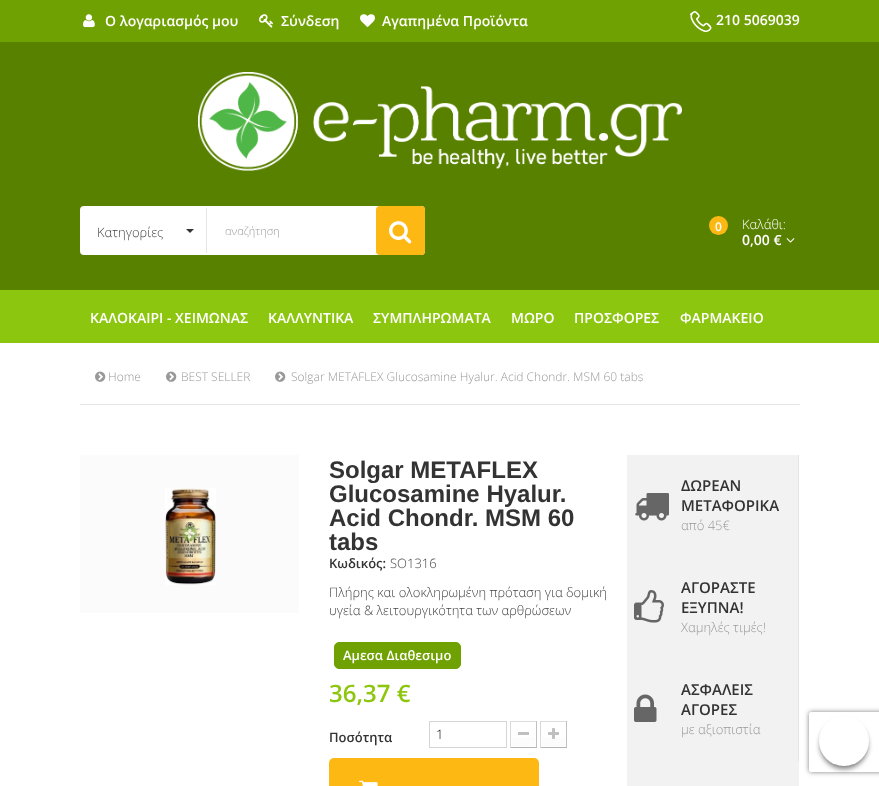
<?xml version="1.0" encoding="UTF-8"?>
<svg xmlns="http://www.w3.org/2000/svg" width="879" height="786">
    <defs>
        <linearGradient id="g1" gradientUnits="userSpaceOnUse" x1="524" y1="723" x2="524" y2="746"><stop offset="0" stop-color="#FFFFFF"/><stop offset="1" stop-color="#FBFBFB"/></linearGradient>
        <linearGradient id="g2" gradientUnits="userSpaceOnUse" x1="554" y1="723" x2="554" y2="746"><stop offset="0" stop-color="#FFFFFF"/><stop offset="1" stop-color="#FBFBFB"/></linearGradient>
        <clipPath id="clip1"><path d="M 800 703 H 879 V 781 H 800 Z M 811 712 H 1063 C 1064 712 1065 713 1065 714 V 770 C 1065 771 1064 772 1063 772 H 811 C 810 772 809 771 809 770 V 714 C 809 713 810 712 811 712 Z" clip-rule="evenodd"/></clipPath>
        <filter id="blur1" x="-50%" y="-200%" width="200%" height="500%"><feGaussianBlur stdDeviation="2.5"/></filter>
    </defs>
    <rect width="100%" height="100%" fill="#FFFFFF"/>
    <rect x="0" y="0" width="879" height="42" fill="#70A102"/>
    <image x="83" y="14" width="12" height="14" href="img_01.png"/>
    <text x="105" y="26" font-family="Open Sans" font-size="14" font-weight="600" fill="#FFFFFF">Ο λογαριασμός μου</text>
    <image x="259" y="14" width="14" height="14" href="img_02.png"/>
    <text x="281" y="26" font-family="Open Sans" font-size="14" font-weight="600" fill="#FFFFFF">Σύνδεση</text>
    <image x="360" y="14" width="15" height="13" href="img_03.png"/>
    <text x="382" y="26" font-family="Open Sans" font-size="14" font-weight="600" fill="#FFFFFF">Αγαπημένα Προϊόντα</text>
    <image x="690" y="11" width="22" height="21" href="img_04.png"/>
    <text x="716" y="25" font-family="Open Sans" font-size="14" font-weight="600" fill="#FFFFFF">210 5069039</text>
    <rect x="0" y="42" width="879" height="248" fill="#598100"/>
    <image x="198" y="72" width="484" height="99" href="img_05.png"/>
    <rect x="80" y="206" width="345" height="49" rx="4" fill="#FFFFFF"/>
    <rect x="206" y="208" width="1" height="45" fill="#E5E5E5"/>
    <text x="97" y="237" font-family="Open Sans" font-size="13" font-weight="300" fill="#444444">Κατηγορίες</text>
    <path d="M 186 229 H 194 L 190 233 Z" fill="#333333"/>
    <text x="225" y="235" font-family="Open Sans" font-size="11" font-weight="300" fill="#999999">αναζήτηση</text>
    <rect x="376" y="206" width="49" height="49" rx="4" fill="#FDB813"/>
    <image x="389" y="221" width="23" height="23" href="img_06.png"/>
    <circle cx="718.5" cy="225.5" r="9.5" fill="#FDB813"/>
    <text x="715" y="231" font-family="Open Sans" font-size="12" font-weight="600" fill="#FFFFFF">0</text>
    <text x="742" y="229" font-family="Open Sans" font-size="13" font-weight="300" fill="#FFFFFF">Καλάθι:</text>
    <text x="742" y="245" font-family="Open Sans" font-size="14" font-weight="600" fill="#FFFFFF">0,00 €</text>
    <image x="786" y="238" width="9" height="5" href="img_07.png"/>
    <rect x="0" y="290" width="879" height="53" fill="#8DC60F"/>
    <text x="90" y="323" font-family="Open Sans" font-size="14" font-weight="600" fill="#FFFFFF">ΚΑΛΟΚΑΙΡΙ - ΧΕΙΜΩΝΑΣ</text>
    <text x="268" y="323" font-family="Open Sans" font-size="14" font-weight="600" fill="#FFFFFF">ΚΑΛΛΥΝΤΙΚΑ</text>
    <text x="373" y="323" font-family="Open Sans" font-size="14" font-weight="600" fill="#FFFFFF">ΣΥΜΠΛΗΡΩΜΑΤΑ</text>
    <text x="511" y="323" font-family="Open Sans" font-size="14" font-weight="600" fill="#FFFFFF">ΜΩΡΟ</text>
    <text x="574" y="323" font-family="Open Sans" font-size="14" font-weight="600" fill="#FFFFFF">ΠΡΟΣΦΟΡΕΣ</text>
    <text x="680" y="323" font-family="Open Sans" font-size="14" font-weight="600" fill="#FFFFFF">ΦΑΡΜΑΚΕΙΟ</text>
    <image x="95" y="371" width="11" height="11" href="img_08.png"/>
    <text x="108" y="381" font-family="Open Sans" font-size="12" font-weight="300" fill="#999999">Home</text>
    <image x="166" y="371" width="11" height="11" href="img_08.png"/>
    <text x="181" y="381" font-family="Open Sans" font-size="12" font-weight="300" fill="#999999">BEST SELLER</text>
    <image x="275" y="371" width="11" height="11" href="img_08.png"/>
    <text x="291" y="381" font-family="Open Sans" font-size="12" font-weight="300" fill="#999999">Solgar METAFLEX Glucosamine Hyalur. Acid Chondr. MSM 60 tabs</text>
    <rect x="80" y="404" width="720" height="1" fill="#E5E5E5"/>
    <rect x="80" y="455" width="219" height="158" fill="#FBFBFB"/>
    <image x="165" y="488" width="51" height="97" href="img_09.png"/>
    <text font-family="Liberation Sans" font-size="24" font-weight="700" fill="#333333">
        <tspan x="329" y="478">Solgar METAFLEX</tspan>
        <tspan x="329" y="502">Glucosamine Hyalur.</tspan>
        <tspan x="329" y="526">Acid Chondr. MSM 60</tspan>
        <tspan x="329" y="550">tabs</tspan>
    </text>
    <text x="329" y="568" font-family="Open Sans" font-size="13" font-weight="600" fill="#333333">Κωδικός:</text>
    <text x="390" y="568" font-family="Open Sans" font-size="13" font-weight="300" fill="#444444">SO1316</text>
    <text font-family="Open Sans" font-size="13" font-weight="300" fill="#444444">
        <tspan x="329" y="597">Πλήρης και ολοκληρωμένη πρόταση για δομική</tspan>
        <tspan x="329" y="615">υγεία &amp; λειτουργικότητα των αρθρώσεων</tspan>
    </text>
    <rect x="334.5" y="642.5" width="126" height="26" rx="4.5" fill="#70A102" stroke="#70A102"/>
    <text x="343" y="660" font-family="Open Sans" font-size="13" font-weight="600" fill="#FFFFFF">Αμεσα Διαθεσιμο</text>
    <text x="329" y="702" font-family="Open Sans" font-size="24" font-weight="600" fill="#8DC60F">36,37 €</text>
    <text x="329" y="742" font-family="Open Sans" font-size="13" font-weight="600" fill="#333333">Ποσότητα</text>
    <rect x="429.5" y="721.5" width="77" height="26" fill="none" stroke="#D6D4D4"/>
    <text x="436" y="739" font-family="Open Sans" font-size="13" font-weight="300" fill="#000000">1</text>
    <rect x="510" y="721" width="27" height="1" fill="#DEDCDC"/>
    <rect x="536" y="721" width="1" height="27" fill="#C1BFBF"/>
    <rect x="510" y="747" width="27" height="1" fill="#B5B4B4"/>
    <rect x="510" y="721" width="1" height="27" fill="#DAD8D8"/>
    <rect x="512" y="737" width="23" height="9" fill="url(#g1)"/>
    <rect x="518" y="732" width="11" height="3" fill="#C0C0C0"/>
    <rect x="540" y="721" width="27" height="1" fill="#DEDCDC"/>
    <rect x="566" y="721" width="1" height="27" fill="#C1BFBF"/>
    <rect x="540" y="747" width="27" height="1" fill="#B5B4B4"/>
    <rect x="540" y="721" width="1" height="27" fill="#DAD8D8"/>
    <rect x="542" y="737" width="23" height="9" fill="url(#g2)"/>
    <image x="548" y="728" width="11" height="11" href="img_10.png"/>
    <rect x="329" y="758" width="210" height="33" rx="5" fill="#FDB813"/>
    <image x="359" y="780" width="19" height="6" href="img_11.png"/>
    <rect x="627" y="455" width="171" height="306" fill="#F2F2F2"/>
    <rect x="798" y="455" width="1" height="306" fill="#E5E5E5"/>
    <image x="635" y="493" width="34" height="28" href="img_12.png"/>
    <text font-family="Open Sans" font-size="15" font-weight="600" fill="#333333">
        <tspan x="681" y="491">ΔΩΡΕΑΝ</tspan>
        <tspan x="681" y="511">ΜΕΤΑΦΟΡΙΚΑ</tspan>
    </text>
    <text x="681" y="530" font-family="Open Sans" font-size="13" font-weight="300" fill="#999999">από 45€</text>
    <image x="634" y="590" width="30" height="33" href="img_13.png"/>
    <text font-family="Open Sans" font-size="15" font-weight="600" fill="#333333">
        <tspan x="681" y="593">ΑΓΟΡΑΣΤΕ</tspan>
        <tspan x="681" y="613">ΕΞΥΠΝΑ!</tspan>
    </text>
    <text x="681" y="632" font-family="Open Sans" font-size="13" font-weight="300" fill="#999999">Χαμηλές τιμές!</text>
    <image x="634" y="694" width="23" height="28" href="img_14.png"/>
    <text font-family="Open Sans" font-size="15" font-weight="600" fill="#333333">
        <tspan x="681" y="695">ΑΣΦΑΛΕΙΣ</tspan>
        <tspan x="681" y="715">ΑΓΟΡΕΣ</tspan>
    </text>
    <text x="681" y="734" font-family="Open Sans" font-size="13" font-weight="300" fill="#999999">με αξιοπιστία</text>
    <rect x="627" y="761" width="172" height="25" fill="#F2F2F2"/>
    <g clip-path="url(#clip1)">
        <rect x="809" y="712" width="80" height="60" rx="2" fill="#808080" filter="url(#blur1)"/>
    </g>
    <rect x="820" y="721" width="48" height="48" rx="24" fill="#000000" fill-opacity="0.5" filter="url(#blur1)"/>
    <circle cx="844" cy="741" r="25" fill="#FFFFFF"/>
</svg>
